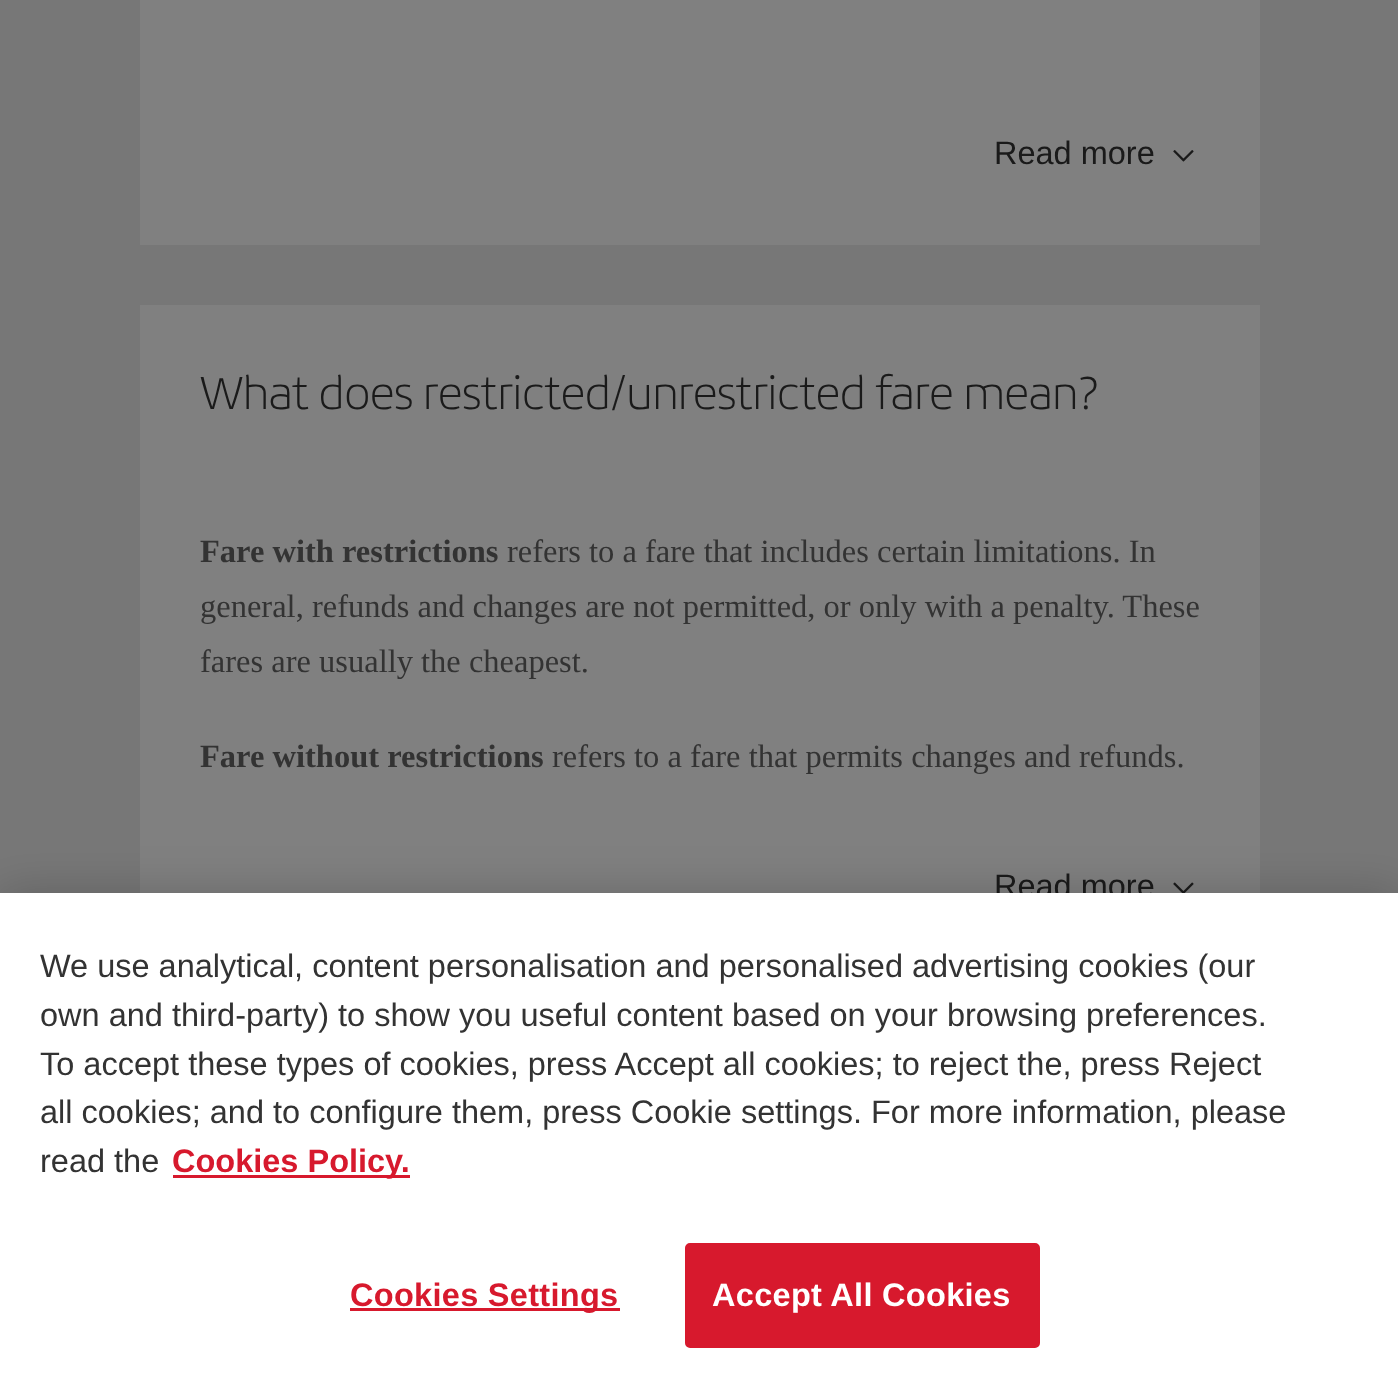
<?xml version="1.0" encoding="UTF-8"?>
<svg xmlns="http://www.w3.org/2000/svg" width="1398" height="1386">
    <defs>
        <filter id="blur1" x="-50%" y="-200%" width="200%" height="500%"><feGaussianBlur stdDeviation="22.5"/></filter>
    </defs>
    <rect width="100%" height="100%" fill="#777777"/>
    <rect x="140" y="0" width="1120" height="245" fill="#808080"/>
    <text x="994" y="164" font-family="Liberation Sans" font-size="32.5" fill="#1A1A1A">Read more</text>
    <image x="1173" y="150" width="21" height="12" href="img_01.png"/>
    <rect x="140" y="305" width="1120" height="588" fill="#808080"/>
    <text x="200" y="409" font-family="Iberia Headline" font-size="50" fill="#1A1A1A">What does restricted/unrestricted fare mean?</text>
    <text x="200" y="562" font-family="Liberation Serif" font-size="32.5" font-weight="700" fill="#333333">Fare with restrictions</text>
    <text x="507" y="562" font-family="Liberation Serif" font-size="32.5" fill="#333333">refers to a fare that includes certain limitations. In</text>
    <text font-family="Liberation Serif" font-size="32.5" fill="#333333">
        <tspan x="200" y="617">general, refunds and changes are not permitted, or only with a penalty. These</tspan>
        <tspan x="200" y="672">fares are usually the cheapest.</tspan>
    </text>
    <text x="200" y="767" font-family="Liberation Serif" font-size="32.5" font-weight="700" fill="#333333">Fare without restrictions</text>
    <text x="552" y="767" font-family="Liberation Serif" font-size="32.5" fill="#333333">refers to a fare that permits changes and refunds.</text>
    <text x="994" y="897" font-family="Liberation Sans" font-size="32.5" fill="#1A1A1A">Read more</text>
    <image x="1173" y="882" width="21" height="11" href="img_02.png"/>
    <rect x="0" y="893" width="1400" height="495" fill="#000000" fill-opacity="0.2" filter="url(#blur1)"/>
    <rect x="0" y="893" width="1398" height="493" fill="#FFFFFF"/>
    <text font-family="Liberation Sans" font-size="32.5" fill="#333333">
        <tspan x="40" y="977">We use analytical, content personalisation and personalised advertising cookies (our</tspan>
        <tspan x="40" y="1026">own and third-party) to show you useful content based on your browsing preferences.</tspan>
        <tspan x="40" y="1075">To accept these types of cookies, press Accept all cookies; to reject the, press Reject</tspan>
        <tspan x="40" y="1123">all cookies; and to configure them, press Cookie settings. For more information, please</tspan>
        <tspan x="40" y="1172">read the</tspan>
    </text>
    <rect x="173" y="1175" width="237" height="3" fill="#D7192D"/>
    <text x="172" y="1172" font-family="Liberation Sans" font-size="32.5" font-weight="700" fill="#D7192D">Cookies Policy.</text>
    <rect x="350" y="1308" width="270" height="3" fill="#D7192D"/>
    <text x="350" y="1306" font-family="Liberation Sans" font-size="32.5" font-weight="700" letter-spacing="0.3" fill="#D7192D">Cookies Settings</text>
    <rect x="686.5" y="1244.5" width="352" height="102" rx="3.5" fill="#D7192D" stroke="#D7192D" stroke-width="3"/>
    <text x="712" y="1306" font-family="Liberation Sans" font-size="32.5" font-weight="700" letter-spacing="0.3" fill="#FFFFFF">Accept All Cookies</text>
</svg>
